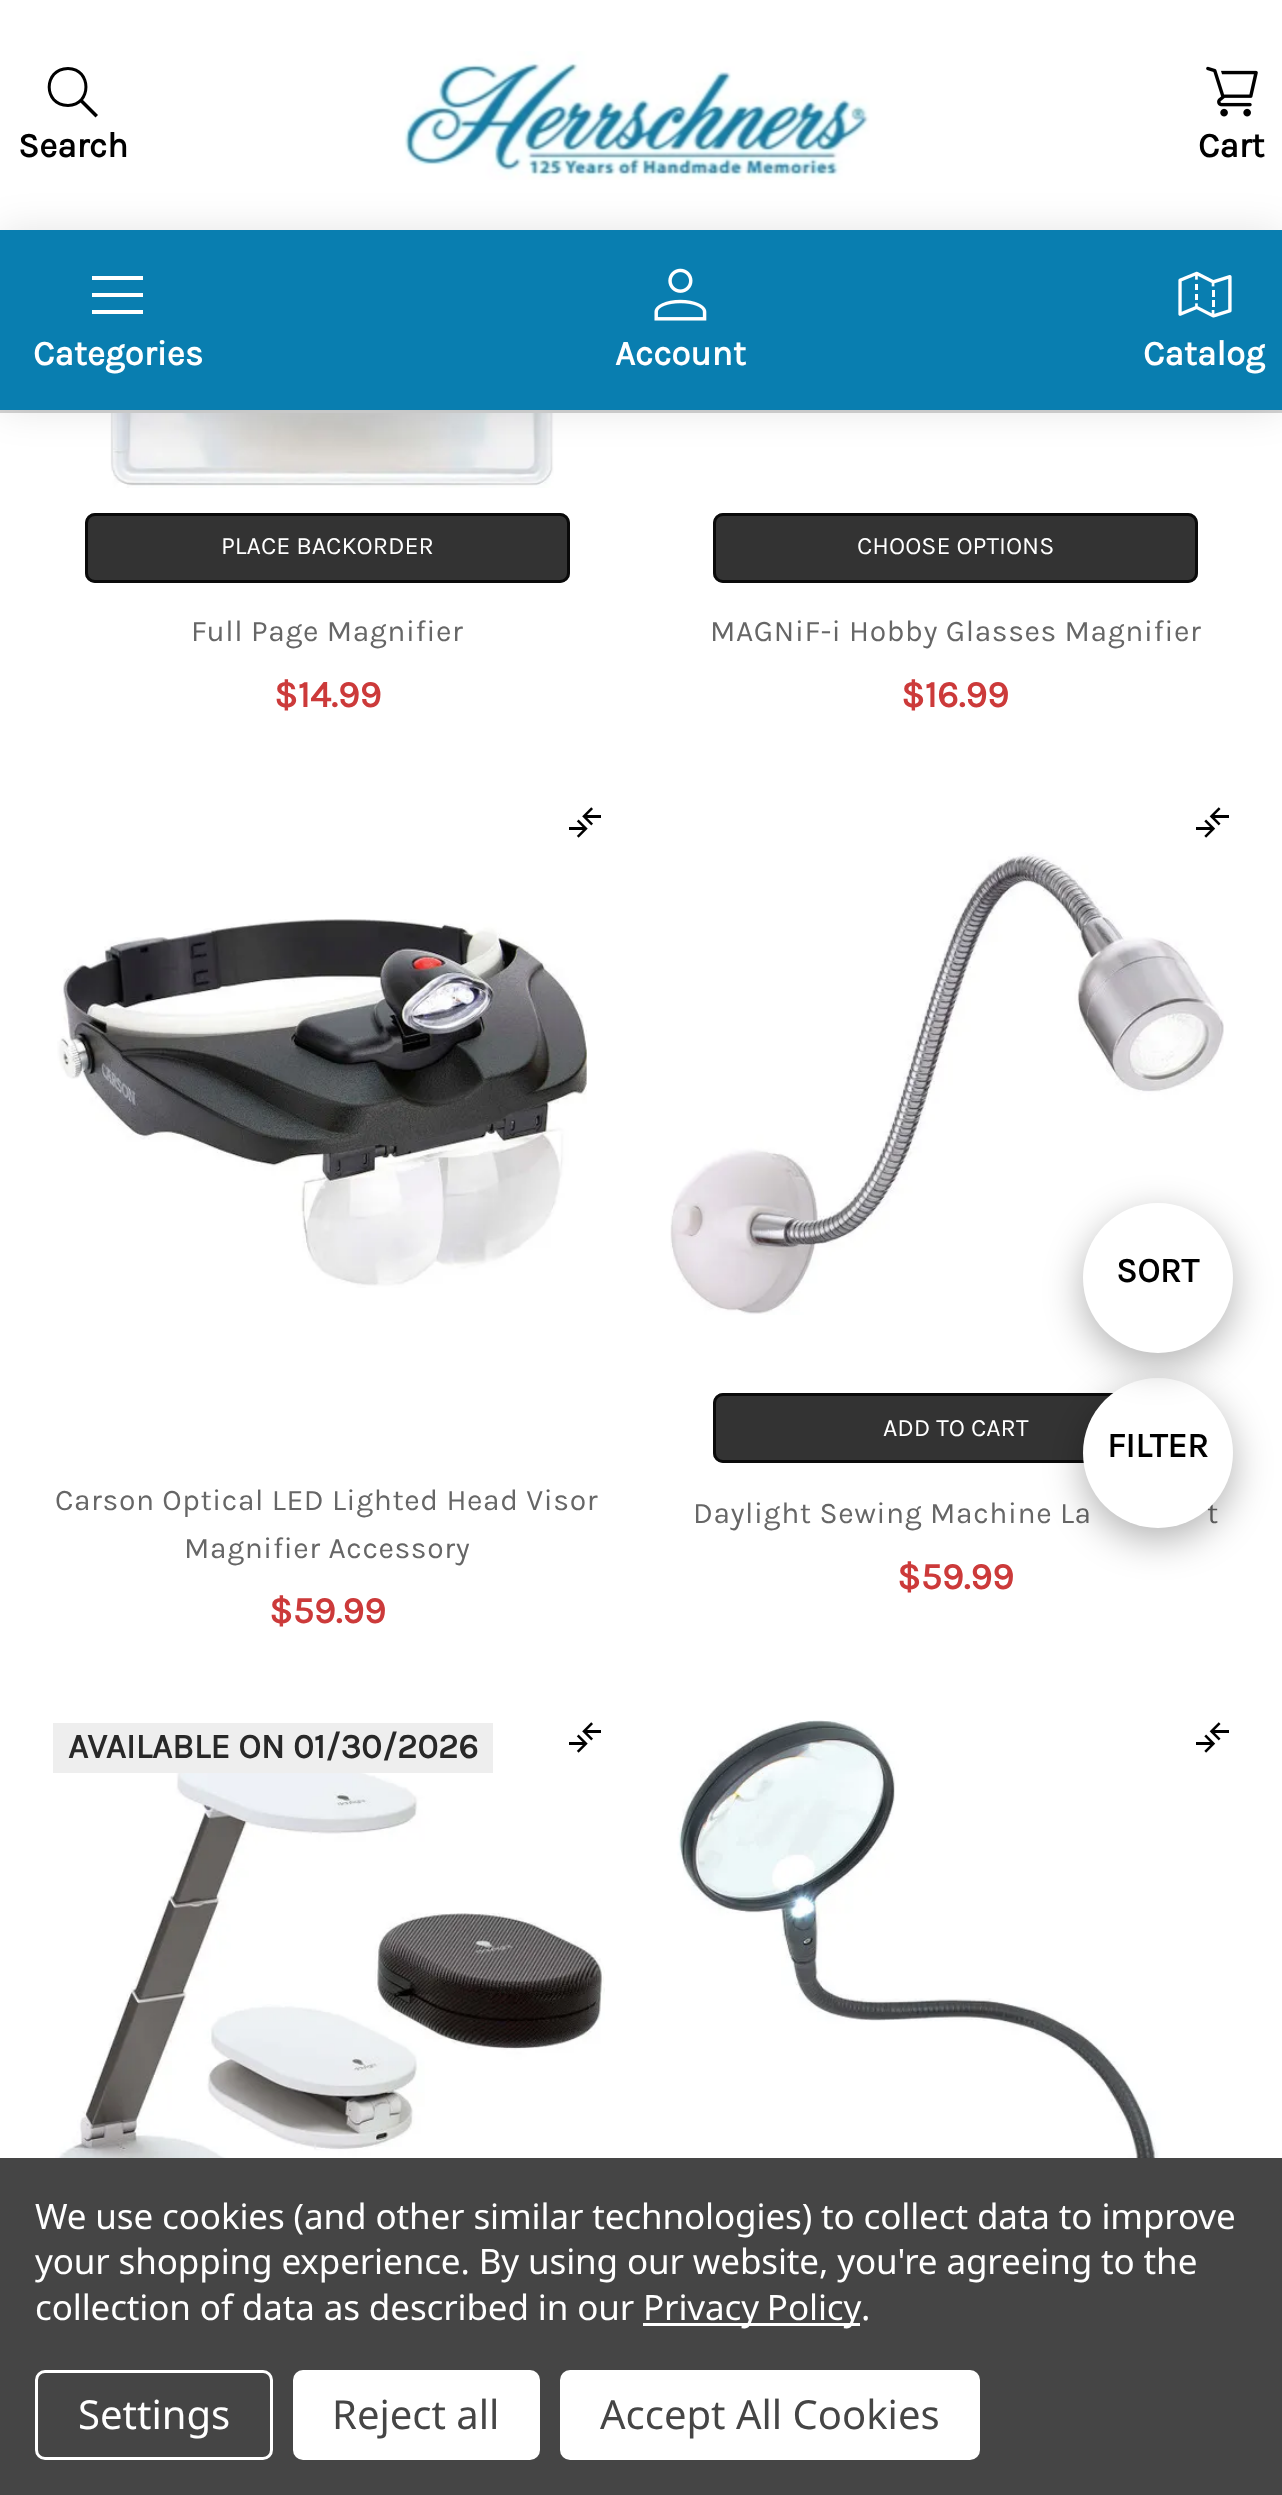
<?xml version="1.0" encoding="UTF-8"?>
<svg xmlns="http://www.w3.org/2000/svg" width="1282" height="2495">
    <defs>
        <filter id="blur1" x="-50%" y="-200%" width="200%" height="500%"><feGaussianBlur stdDeviation="19"/></filter>
    </defs>
    <rect width="100%" height="100%" fill="#FFFFFF"/>
    <rect x="0" y="410" width="1282" height="3" fill="#D3D3D3"/>
    <path d="M 68 107 C 41 107 41 67 68 67 C 94 67 94 107 68 107 Z M 68 70 C 45 70 45 104 68 104 C 90 104 90 70 68 70 Z" fill="#000000"/>
    <path d="M 81.5 98.5 L 98 115 L 95.5 117.5 L 79 101 Z" fill="#000000"/>
    <text x="18" y="157" font-family="Karla" font-size="35" font-weight="700" fill="#000000">Search</text>
    <image x="110" y="413" width="444" height="75" href="img_05.png"/>
    <rect x="0" y="230" width="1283" height="180" fill="#000000" fill-opacity="0.1" filter="url(#blur1)"/>
    <image x="404" y="51" width="466" height="129" href="img_01.png"/>
    <image x="1206" y="66" width="52" height="51" href="img_02.png"/>
    <text x="1198" y="157" font-family="Karla" font-size="35" font-weight="700" fill="#000000">Cart</text>
    <rect x="0" y="230" width="1282" height="180" fill="#097EB0"/>
    <rect x="92" y="276" width="51" height="4" fill="#FFFFFF"/>
    <rect x="92" y="293" width="51" height="4" fill="#FFFFFF"/>
    <rect x="92" y="310" width="51" height="4" fill="#FFFFFF"/>
    <text x="33" y="365" font-family="Karla" font-size="35" font-weight="700" fill="#FFFFFF">Categories</text>
    <image x="654" y="268" width="53" height="53" href="img_03.png"/>
    <text x="615" y="365" font-family="Karla" font-size="35" font-weight="700" fill="#FFFFFF">Account</text>
    <image x="1178" y="271" width="54" height="47" href="img_04.png"/>
    <text x="1143" y="365" font-family="Karla" font-size="35" font-weight="700" fill="#FFFFFF">Catalog</text>
    <rect x="85" y="513" width="485" height="70" rx="10" fill="#333333"/>
    <rect x="86.5" y="514.5" width="482" height="67" rx="8.5" fill="none" stroke="#000000" stroke-opacity="0.8" stroke-width="3"/>
    <text x="221" y="554" font-family="Karla" font-size="25" fill="#FFFFFF">PLACE BACKORDER</text>
    <text x="191" y="641" font-family="Karla" font-size="30" letter-spacing="0.6" fill="#666666">Full Page Magnifier</text>
    <text x="274" y="707" font-family="Karla" font-size="37.5" font-weight="700" fill="#CC3A3A">$14.99</text>
    <rect x="713" y="513" width="485" height="70" rx="10" fill="#333333"/>
    <rect x="714.5" y="514.5" width="482" height="67" rx="8.5" fill="none" stroke="#000000" stroke-opacity="0.8" stroke-width="3"/>
    <text x="857" y="554" font-family="Karla" font-size="25" fill="#FFFFFF">CHOOSE OPTIONS</text>
    <text x="710" y="641" font-family="Karla" font-size="30" letter-spacing="0.6" fill="#666666">MAGNiF-i Hobby Glasses Magnifier</text>
    <text x="901" y="707" font-family="Karla" font-size="37.5" font-weight="700" fill="#CC3A3A">$16.99</text>
    <image x="569" y="807" width="32" height="31" href="img_06.png"/>
    <image x="57" y="919" width="530" height="369" href="img_07.png"/>
    <text x="55" y="1510" font-family="Karla" font-size="30" letter-spacing="0.6" fill="#666666">Carson Optical LED Lighted Head Visor</text>
    <text x="184" y="1558" font-family="Karla" font-size="30" letter-spacing="0.6" fill="#666666">Magnifier Accessory</text>
    <text x="269" y="1623" font-family="Karla" font-size="37.5" font-weight="700" fill="#CC3A3A">$59.99</text>
    <image x="670" y="852" width="554" height="463" href="img_08.png"/>
    <image x="1196" y="807" width="33" height="31" href="img_09.png"/>
    <rect x="713" y="1393" width="485" height="70" rx="10" fill="#333333"/>
    <rect x="714.5" y="1394.5" width="482" height="67" rx="8.5" fill="none" stroke="#000000" stroke-opacity="0.8" stroke-width="3"/>
    <text x="883" y="1436" font-family="Karla" font-size="25" fill="#FFFFFF">ADD TO CART</text>
    <text x="693" y="1523" font-family="Karla" font-size="30" letter-spacing="0.6" fill="#666666">Daylight Sewing Machine La</text>
    <text x="1207" y="1523" font-family="Karla" font-size="30" letter-spacing="0.6" fill="#666666">t</text>
    <text x="897" y="1589" font-family="Karla" font-size="37.5" font-weight="700" fill="#CC3A3A">$59.99</text>
    <image x="55" y="1756" width="550" height="402" href="img_10.png"/>
    <rect x="53" y="1723" width="440" height="50" fill="#EEEEEE"/>
    <text x="68" y="1758" font-family="Karla" font-size="35" font-weight="700" fill="#282828">AVAILABLE ON 01/30/2026</text>
    <image x="569" y="1722" width="32" height="31" href="img_06.png"/>
    <image x="677" y="1720" width="548" height="438" href="img_11.png"/>
    <image x="1196" y="1722" width="33" height="31" href="img_09.png"/>
    <rect x="1083" y="1390" width="150" height="150" rx="75" fill="#000000" fill-opacity="0.3" filter="url(#blur1)"/>
    <circle cx="1158" cy="1453" r="75" fill="#FFFFFF"/>
    <rect x="1083" y="1215" width="150" height="150" rx="75" fill="#000000" fill-opacity="0.3" filter="url(#blur1)"/>
    <circle cx="1158" cy="1278" r="75" fill="#FFFFFF"/>
    <text x="1116" y="1282" font-family="Karla" font-size="35" font-weight="700" fill="#000000">SORT</text>
    <text x="1107" y="1457" font-family="Karla" font-size="35" font-weight="700" fill="#000000">FILTER</text>
    <rect x="0" y="2158" width="1282" height="337" fill="#454545"/>
    <text font-family="Noto Sans" font-size="35" letter-spacing="-0.12" fill="#FFFFFF">
        <tspan x="35" y="2229">We use cookies (and other similar technologies) to collect data to improve</tspan>
        <tspan x="35" y="2274">your shopping experience. By using our website, you're agreeing to the</tspan>
        <tspan x="35" y="2320">collection of data as described in our</tspan>
    </text>
    <rect x="643" y="2323" width="217" height="3" fill="#FFFFFF"/>
    <text x="643" y="2320" word-spacing="-1" font-family="Noto Sans" font-size="35" letter-spacing="-0.12" fill="#FFFFFF">Privacy Policy</text>
    <text x="861" y="2320" font-family="Noto Sans" font-size="35" letter-spacing="-0.12" fill="#FFFFFF">.</text>
    <rect x="36.5" y="2371.5" width="235" height="87" rx="8.5" fill="none" stroke="#FFFFFF" stroke-width="3"/>
    <text x="78" y="2429" font-family="Noto Sans" font-size="40" fill="#FFFFFF">Settings</text>
    <rect x="293" y="2370" width="247" height="90" rx="10" fill="#FFFFFF"/>
    <text x="332" y="2429" font-family="Noto Sans" font-size="40" fill="#454545">Reject all</text>
    <rect x="560" y="2370" width="420" height="90" rx="10" fill="#FFFFFF"/>
    <text x="600" y="2429" font-family="Noto Sans" font-size="40" fill="#454545">Accept All Cookies</text>
</svg>
